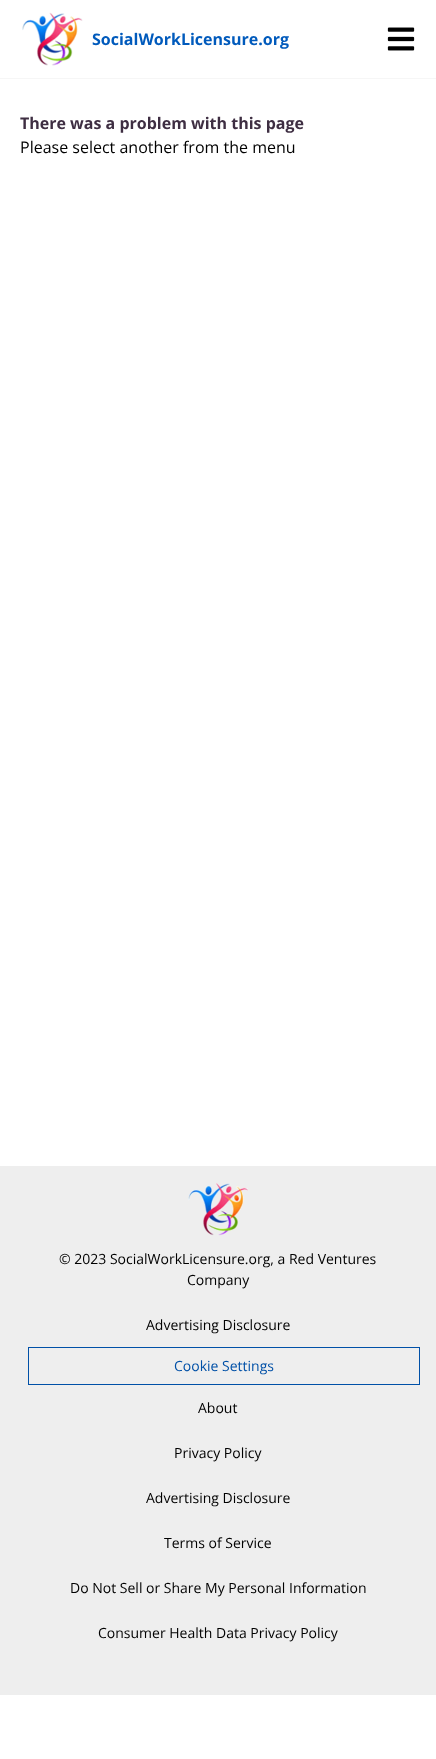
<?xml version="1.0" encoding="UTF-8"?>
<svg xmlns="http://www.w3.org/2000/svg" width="436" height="1759">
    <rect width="100%" height="100%" fill="#FFFFFF"/>
    <rect x="0" y="78" width="436" height="1" fill="#F6F6F6"/>
    <image x="22" y="12" width="61" height="54" href="img_01.png"/>
    <text x="92" y="45" font-family="Open Sans" font-size="16" font-weight="700" fill="#005ABC">SocialWorkLicensure.org</text>
    <image x="387" y="27" width="28" height="24" href="img_02.png"/>
    <text x="20" y="129" font-family="Open Sans" font-size="16" font-weight="700" fill="#3E2E42">There was a problem with this page</text>
    <text x="20" y="153" font-family="Open Sans" font-size="16" fill="#000000">Please select another from the menu</text>
    <rect x="0" y="1166" width="436" height="529" fill="#EEEEEE"/>
    <image x="188" y="1183" width="60" height="53" href="img_03.png"/>
    <text x="59" y="1264" font-family="Open Sans" font-size="14" fill="#000000">© 2023 SocialWorkLicensure.org, a Red Ventures</text>
    <text x="187" y="1285" font-family="Open Sans" font-size="14" fill="#000000">Company</text>
    <text x="146" y="1330" font-family="Open Sans" font-size="14" fill="#000000">Advertising Disclosure</text>
    <rect x="28.5" y="1347.5" width="391" height="37" fill="none" stroke="#0050A7"/>
    <text x="174" y="1371" font-family="Open Sans" font-size="14" fill="#0050A7">Cookie Settings</text>
    <text x="198" y="1413" font-family="Open Sans" font-size="14" fill="#000000">About</text>
    <text x="174" y="1458" font-family="Open Sans" font-size="14" fill="#000000">Privacy Policy</text>
    <text x="146" y="1503" font-family="Open Sans" font-size="14" fill="#000000">Advertising Disclosure</text>
    <text x="164" y="1548" font-family="Open Sans" font-size="14" fill="#000000">Terms of Service</text>
    <text x="70" y="1593" font-family="Open Sans" font-size="14" fill="#000000">Do Not Sell or Share My Personal Information</text>
    <text x="98" y="1638" font-family="Open Sans" font-size="14" fill="#000000">Consumer Health Data Privacy Policy</text>
</svg>
